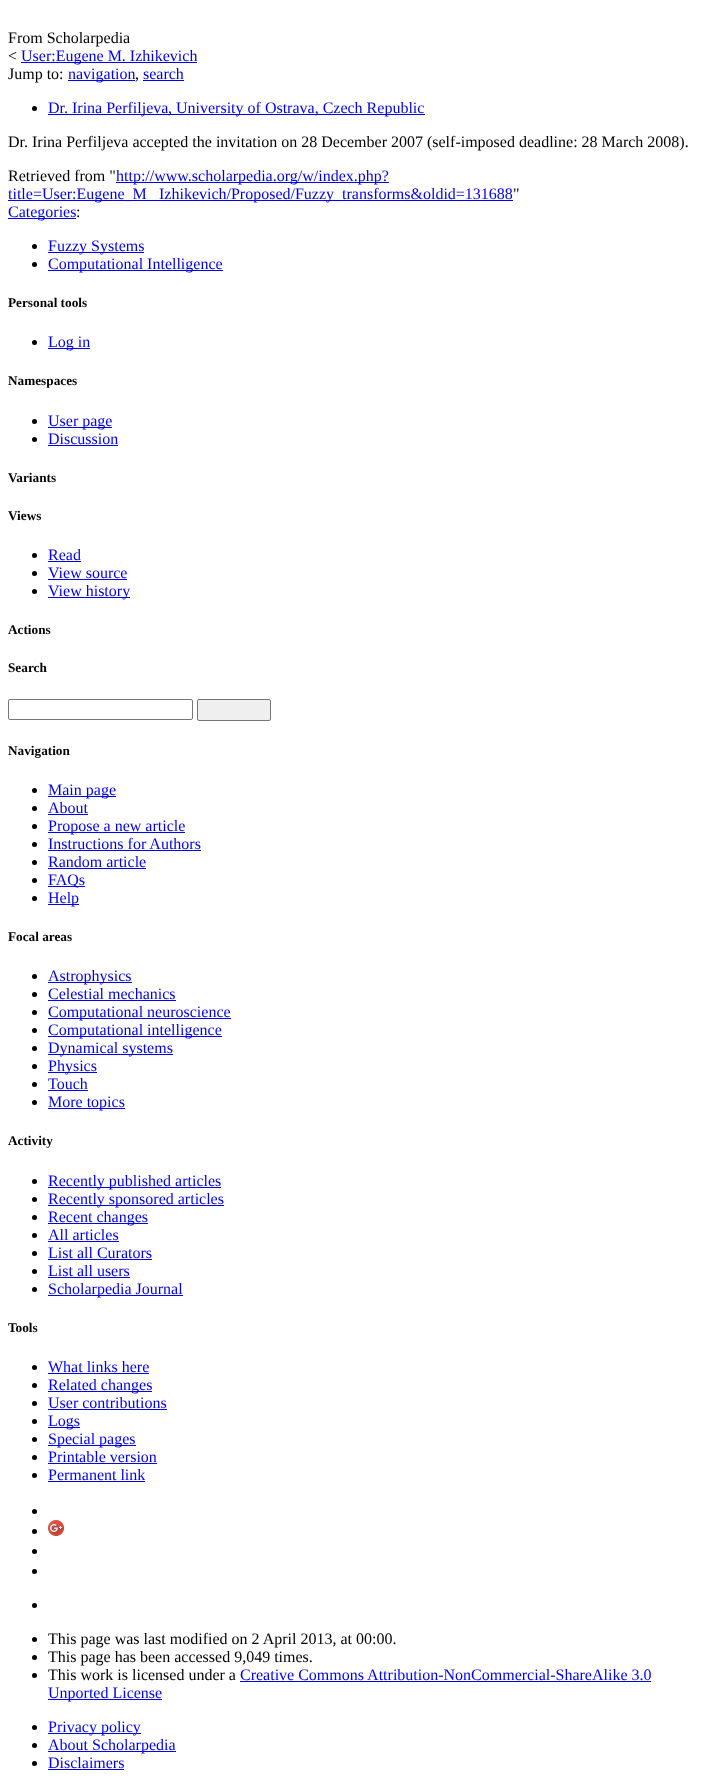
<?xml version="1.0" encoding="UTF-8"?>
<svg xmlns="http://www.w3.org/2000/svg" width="713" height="1788">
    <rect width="100%" height="100%" fill="#FFFFFF"/>
    <text font-family="Liberation Serif" font-size="16" fill="#000000">
        <tspan x="8" y="43">From Scholarpedia</tspan>
        <tspan x="8" y="61">&lt;</tspan>
    </text>
    <rect x="21" y="62" width="176" height="1" fill="#0000EE"/>
    <text x="21" y="61" font-family="Liberation Serif" font-size="16" fill="#0000EE">User:Eugene M. Izhikevich</text>
    <text x="8" y="79" font-family="Liberation Serif" font-size="16" fill="#000000">Jump to:</text>
    <rect x="68" y="80" width="67" height="1" fill="#0000EE"/>
    <text x="68" y="79" font-family="Liberation Serif" font-size="16" fill="#0000EE">navigation</text>
    <text x="135" y="79" font-family="Liberation Serif" font-size="16" fill="#000000">,</text>
    <text x="143" y="79" font-family="Liberation Serif" font-size="16" fill="#0000EE">search</text>
    <rect x="143" y="80" width="41" height="1" fill="#0000EE"/>
    <circle cx="34.5" cy="108.5" r="2.5" fill="#000000"/>
    <rect x="48" y="114" width="120" height="1" fill="#0000EE"/>
    <text x="48" y="113" font-family="Liberation Serif" font-size="16" fill="#0000EE">Dr. Irina Perfiljeva</text>
    <rect x="168" y="114" width="257" height="1" fill="#0000EE"/>
    <text x="168" y="113" font-family="Liberation Serif" font-size="16" fill="#0000EE">, University of Ostrava, Czech Republic</text>
    <text x="8" y="147" font-family="Liberation Serif" font-size="16" fill="#000000">Dr. Irina Perfiljeva accepted the invitation on 28 December 2007 (self-imposed deadline: 28 March 2008).</text>
    <text x="8" y="181" font-family="Liberation Serif" font-size="16" fill="#000000">Retrieved from "</text>
    <rect x="116" y="182" width="273" height="1" fill="#0000EE"/>
    <text x="116" y="181" font-family="Liberation Serif" font-size="16" fill="#0000EE">http://www.scholarpedia.org/w/index.php?</text>
    <rect x="8" y="200" width="505" height="1" fill="#0000EE"/>
    <text x="8" y="199" font-family="Liberation Serif" font-size="16" fill="#0000EE">title=User:Eugene_M</text>
    <text x="159" y="199" font-family="Liberation Serif" font-size="16" fill="#0000EE">Izhikevich/Proposed/Fuzzy_transforms&amp;oldid=131688</text>
    <text x="513" y="199" font-family="Liberation Serif" font-size="16" fill="#000000">"</text>
    <rect x="8" y="218" width="68" height="1" fill="#0000EE"/>
    <text x="8" y="217" font-family="Liberation Serif" font-size="16" fill="#0000EE">Categories</text>
    <text x="76" y="217" font-family="Liberation Serif" font-size="16" fill="#000000">:</text>
    <circle cx="34.5" cy="246.5" r="2.5" fill="#000000"/>
    <rect x="48" y="252" width="96" height="1" fill="#0000EE"/>
    <text x="48" y="251" font-family="Liberation Serif" font-size="16" fill="#0000EE">Fuzzy Systems</text>
    <circle cx="34.5" cy="264.5" r="2.5" fill="#000000"/>
    <rect x="48" y="270" width="175" height="1" fill="#0000EE"/>
    <text x="48" y="269" font-family="Liberation Serif" font-size="16" fill="#0000EE">Computational Intelligence</text>
    <text x="8" y="307" font-family="Liberation Serif" font-size="13.25" font-weight="700" fill="#000000">Personal tools</text>
    <circle cx="34.5" cy="342.5" r="2.5" fill="#000000"/>
    <rect x="48" y="348" width="42" height="1" fill="#0000EE"/>
    <text x="48" y="347" font-family="Liberation Serif" font-size="16" fill="#0000EE">Log in</text>
    <text x="8" y="385" font-family="Liberation Serif" font-size="13.25" font-weight="700" fill="#000000">Namespaces</text>
    <circle cx="34.5" cy="421.5" r="2.5" fill="#000000"/>
    <rect x="48" y="427" width="64" height="1" fill="#0000EE"/>
    <text x="48" y="426" font-family="Liberation Serif" font-size="16" fill="#0000EE">User page</text>
    <circle cx="34.5" cy="439.5" r="2.5" fill="#000000"/>
    <text x="48" y="444" font-family="Liberation Serif" font-size="16" fill="#0000EE">Discussion</text>
    <rect x="48" y="445" width="70" height="1" fill="#0000EE"/>
    <text x="8" y="482" font-family="Liberation Serif" font-size="13.25" font-weight="700" fill="#000000">Variants</text>
    <text x="8" y="520" font-family="Liberation Serif" font-size="13.25" font-weight="700" fill="#000000">Views</text>
    <circle cx="34.5" cy="555.5" r="2.5" fill="#000000"/>
    <text x="48" y="560" font-family="Liberation Serif" font-size="16" fill="#0000EE">Read</text>
    <rect x="48" y="561" width="33" height="1" fill="#0000EE"/>
    <circle cx="34.5" cy="573.5" r="2.5" fill="#000000"/>
    <text x="48" y="578" font-family="Liberation Serif" font-size="16" fill="#0000EE">View source</text>
    <rect x="48" y="579" width="79" height="1" fill="#0000EE"/>
    <circle cx="34.5" cy="591.5" r="2.5" fill="#000000"/>
    <rect x="48" y="597" width="82" height="1" fill="#0000EE"/>
    <text x="48" y="596" font-family="Liberation Serif" font-size="16" fill="#0000EE">View history</text>
    <text x="8" y="634" font-family="Liberation Serif" font-size="13.25" font-weight="700" fill="#000000">Actions</text>
    <text x="8" y="672" font-family="Liberation Serif" font-size="13.25" font-weight="700" fill="#000000">Search</text>
    <rect x="8.5" y="699.5" width="184" height="20" rx="1.5" fill="none" stroke="#767676"/>
    <rect x="197.5" y="699.5" width="73" height="21" rx="1.5" fill="#EFEFEF" stroke="#767676"/>
    <text x="8" y="755" font-family="Liberation Serif" font-size="13.25" font-weight="700" fill="#000000">Navigation</text>
    <circle cx="34.5" cy="790.5" r="2.5" fill="#000000"/>
    <rect x="48" y="796" width="68" height="1" fill="#0000EE"/>
    <text x="48" y="795" font-family="Liberation Serif" font-size="16" fill="#0000EE">Main page</text>
    <circle cx="34.5" cy="808.5" r="2.5" fill="#000000"/>
    <text x="48" y="813" font-family="Liberation Serif" font-size="16" fill="#0000EE">About</text>
    <rect x="48" y="814" width="40" height="1" fill="#0000EE"/>
    <circle cx="34.5" cy="826.5" r="2.5" fill="#000000"/>
    <rect x="48" y="832" width="137" height="1" fill="#0000EE"/>
    <text x="48" y="831" font-family="Liberation Serif" font-size="16" fill="#0000EE">Propose a new article</text>
    <circle cx="34.5" cy="844.5" r="2.5" fill="#000000"/>
    <text x="48" y="849" font-family="Liberation Serif" font-size="16" fill="#0000EE">Instructions for Authors</text>
    <rect x="48" y="850" width="153" height="1" fill="#0000EE"/>
    <circle cx="34.5" cy="862.5" r="2.5" fill="#000000"/>
    <text x="48" y="867" font-family="Liberation Serif" font-size="16" fill="#0000EE">Random article</text>
    <rect x="48" y="868" width="98" height="1" fill="#0000EE"/>
    <circle cx="34.5" cy="880.5" r="2.5" fill="#000000"/>
    <rect x="48" y="886" width="37" height="1" fill="#0000EE"/>
    <text x="48" y="885" font-family="Liberation Serif" font-size="16" fill="#0000EE">FAQs</text>
    <circle cx="34.5" cy="898.5" r="2.5" fill="#000000"/>
    <rect x="48" y="904" width="31" height="1" fill="#0000EE"/>
    <text x="48" y="903" font-family="Liberation Serif" font-size="16" fill="#0000EE">Help</text>
    <text x="8" y="941" font-family="Liberation Serif" font-size="13.25" font-weight="700" fill="#000000">Focal areas</text>
    <circle cx="34.5" cy="976.5" r="2.5" fill="#000000"/>
    <rect x="48" y="982" width="84" height="1" fill="#0000EE"/>
    <text x="48" y="981" font-family="Liberation Serif" font-size="16" fill="#0000EE">Astrophysics</text>
    <circle cx="34.5" cy="994.5" r="2.5" fill="#000000"/>
    <text x="48" y="999" font-family="Liberation Serif" font-size="16" fill="#0000EE">Celestial mechanics</text>
    <rect x="48" y="1000" width="128" height="1" fill="#0000EE"/>
    <circle cx="34.5" cy="1012.5" r="2.5" fill="#000000"/>
    <rect x="48" y="1018" width="183" height="1" fill="#0000EE"/>
    <text x="48" y="1017" font-family="Liberation Serif" font-size="16" fill="#0000EE">Computational neuroscience</text>
    <circle cx="34.5" cy="1030.5" r="2.5" fill="#000000"/>
    <rect x="48" y="1036" width="174" height="1" fill="#0000EE"/>
    <text x="48" y="1035" font-family="Liberation Serif" font-size="16" fill="#0000EE">Computational intelligence</text>
    <circle cx="34.5" cy="1048.5" r="2.5" fill="#000000"/>
    <rect x="48" y="1054" width="125" height="1" fill="#0000EE"/>
    <text x="48" y="1053" font-family="Liberation Serif" font-size="16" fill="#0000EE">Dynamical systems</text>
    <circle cx="34.5" cy="1066.5" r="2.5" fill="#000000"/>
    <rect x="48" y="1072" width="49" height="1" fill="#0000EE"/>
    <text x="48" y="1071" font-family="Liberation Serif" font-size="16" fill="#0000EE">Physics</text>
    <circle cx="34.5" cy="1084.5" r="2.5" fill="#000000"/>
    <text x="48" y="1089" font-family="Liberation Serif" font-size="16" fill="#0000EE">Touch</text>
    <rect x="48" y="1090" width="40" height="1" fill="#0000EE"/>
    <circle cx="34.5" cy="1102.5" r="2.5" fill="#000000"/>
    <rect x="48" y="1108" width="77" height="1" fill="#0000EE"/>
    <text x="48" y="1107" font-family="Liberation Serif" font-size="16" fill="#0000EE">More topics</text>
    <text x="8" y="1145" font-family="Liberation Serif" font-size="13.25" font-weight="700" fill="#000000">Activity</text>
    <circle cx="34.5" cy="1181.5" r="2.5" fill="#000000"/>
    <rect x="48" y="1187" width="173" height="1" fill="#0000EE"/>
    <text x="48" y="1186" font-family="Liberation Serif" font-size="16" fill="#0000EE">Recently published articles</text>
    <circle cx="34.5" cy="1199.5" r="2.5" fill="#000000"/>
    <rect x="48" y="1205" width="176" height="1" fill="#0000EE"/>
    <text x="48" y="1204" font-family="Liberation Serif" font-size="16" fill="#0000EE">Recently sponsored articles</text>
    <circle cx="34.5" cy="1217.5" r="2.5" fill="#000000"/>
    <rect x="48" y="1223" width="100" height="1" fill="#0000EE"/>
    <text x="48" y="1222" font-family="Liberation Serif" font-size="16" fill="#0000EE">Recent changes</text>
    <circle cx="34.5" cy="1235.5" r="2.5" fill="#000000"/>
    <text x="48" y="1240" font-family="Liberation Serif" font-size="16" fill="#0000EE">All articles</text>
    <rect x="48" y="1241" width="71" height="1" fill="#0000EE"/>
    <circle cx="34.5" cy="1253.5" r="2.5" fill="#000000"/>
    <text x="48" y="1258" font-family="Liberation Serif" font-size="16" fill="#0000EE">List all Curators</text>
    <rect x="48" y="1259" width="104" height="1" fill="#0000EE"/>
    <circle cx="34.5" cy="1271.5" r="2.5" fill="#000000"/>
    <text x="48" y="1276" font-family="Liberation Serif" font-size="16" fill="#0000EE">List all users</text>
    <rect x="48" y="1277" width="82" height="1" fill="#0000EE"/>
    <circle cx="34.5" cy="1289.5" r="2.5" fill="#000000"/>
    <rect x="48" y="1295" width="135" height="1" fill="#0000EE"/>
    <text x="48" y="1294" font-family="Liberation Serif" font-size="16" fill="#0000EE">Scholarpedia Journal</text>
    <text x="8" y="1332" font-family="Liberation Serif" font-size="13.25" font-weight="700" fill="#000000">Tools</text>
    <circle cx="34.5" cy="1367.5" r="2.5" fill="#000000"/>
    <text x="48" y="1372" font-family="Liberation Serif" font-size="16" fill="#0000EE">What links here</text>
    <rect x="48" y="1373" width="101" height="1" fill="#0000EE"/>
    <circle cx="34.5" cy="1385.5" r="2.5" fill="#000000"/>
    <rect x="48" y="1391" width="104" height="1" fill="#0000EE"/>
    <text x="48" y="1390" font-family="Liberation Serif" font-size="16" fill="#0000EE">Related changes</text>
    <circle cx="34.5" cy="1403.5" r="2.5" fill="#000000"/>
    <text x="48" y="1408" font-family="Liberation Serif" font-size="16" fill="#0000EE">User contributions</text>
    <rect x="48" y="1409" width="119" height="1" fill="#0000EE"/>
    <circle cx="34.5" cy="1421.5" r="2.5" fill="#000000"/>
    <rect x="48" y="1427" width="32" height="1" fill="#0000EE"/>
    <text x="48" y="1426" font-family="Liberation Serif" font-size="16" fill="#0000EE">Logs</text>
    <circle cx="34.5" cy="1439.5" r="2.5" fill="#000000"/>
    <rect x="48" y="1445" width="88" height="1" fill="#0000EE"/>
    <text x="48" y="1444" font-family="Liberation Serif" font-size="16" fill="#0000EE">Special pages</text>
    <circle cx="34.5" cy="1457.5" r="2.5" fill="#000000"/>
    <text x="48" y="1462" font-family="Liberation Serif" font-size="16" fill="#0000EE">Printable version</text>
    <rect x="48" y="1463" width="109" height="1" fill="#0000EE"/>
    <circle cx="34.5" cy="1475.5" r="2.5" fill="#000000"/>
    <text x="48" y="1480" font-family="Liberation Serif" font-size="16" fill="#0000EE">Permanent link</text>
    <rect x="48" y="1481" width="97" height="1" fill="#0000EE"/>
    <circle cx="34.5" cy="1511.5" r="2.5" fill="#000000"/>
    <circle cx="34.5" cy="1531.5" r="2.5" fill="#000000"/>
    <image x="48" y="1520" width="16" height="16" href="img_01.png"/>
    <circle cx="34.5" cy="1551.5" r="2.5" fill="#000000"/>
    <circle cx="34.5" cy="1571.5" r="2.5" fill="#000000"/>
    <circle cx="34.5" cy="1605.5" r="2.5" fill="#000000"/>
    <circle cx="34.5" cy="1639.5" r="2.5" fill="#000000"/>
    <text x="48" y="1644" font-family="Liberation Serif" font-size="16" fill="#000000">This page was last modified on 2 April 2013, at 00:00.</text>
    <circle cx="34.5" cy="1657.5" r="2.5" fill="#000000"/>
    <text x="48" y="1662" font-family="Liberation Serif" font-size="16" fill="#000000">This page has been accessed 9,049 times.</text>
    <circle cx="34.5" cy="1675.5" r="2.5" fill="#000000"/>
    <text x="48" y="1680" font-family="Liberation Serif" font-size="16" fill="#000000">This work is licensed under a</text>
    <text x="240" y="1680" font-family="Liberation Serif" font-size="16" fill="#0000EE">Creative Commons Attribution-NonCommercial-ShareAlike 3.0</text>
    <rect x="240" y="1681" width="411" height="1" fill="#0000EE"/>
    <rect x="48" y="1699" width="114" height="1" fill="#0000EE"/>
    <text x="48" y="1698" font-family="Liberation Serif" font-size="16" fill="#0000EE">Unported License</text>
    <circle cx="34.5" cy="1727.5" r="2.5" fill="#000000"/>
    <rect x="48" y="1733" width="93" height="1" fill="#0000EE"/>
    <text x="48" y="1732" font-family="Liberation Serif" font-size="16" fill="#0000EE">Privacy policy</text>
    <circle cx="34.5" cy="1745.5" r="2.5" fill="#000000"/>
    <rect x="48" y="1751" width="128" height="1" fill="#0000EE"/>
    <text x="48" y="1750" font-family="Liberation Serif" font-size="16" fill="#0000EE">About Scholarpedia</text>
    <circle cx="34.5" cy="1763.5" r="2.5" fill="#000000"/>
    <text x="48" y="1768" font-family="Liberation Serif" font-size="16" fill="#0000EE">Disclaimers</text>
    <rect x="48" y="1769" width="76" height="1" fill="#0000EE"/>
</svg>
